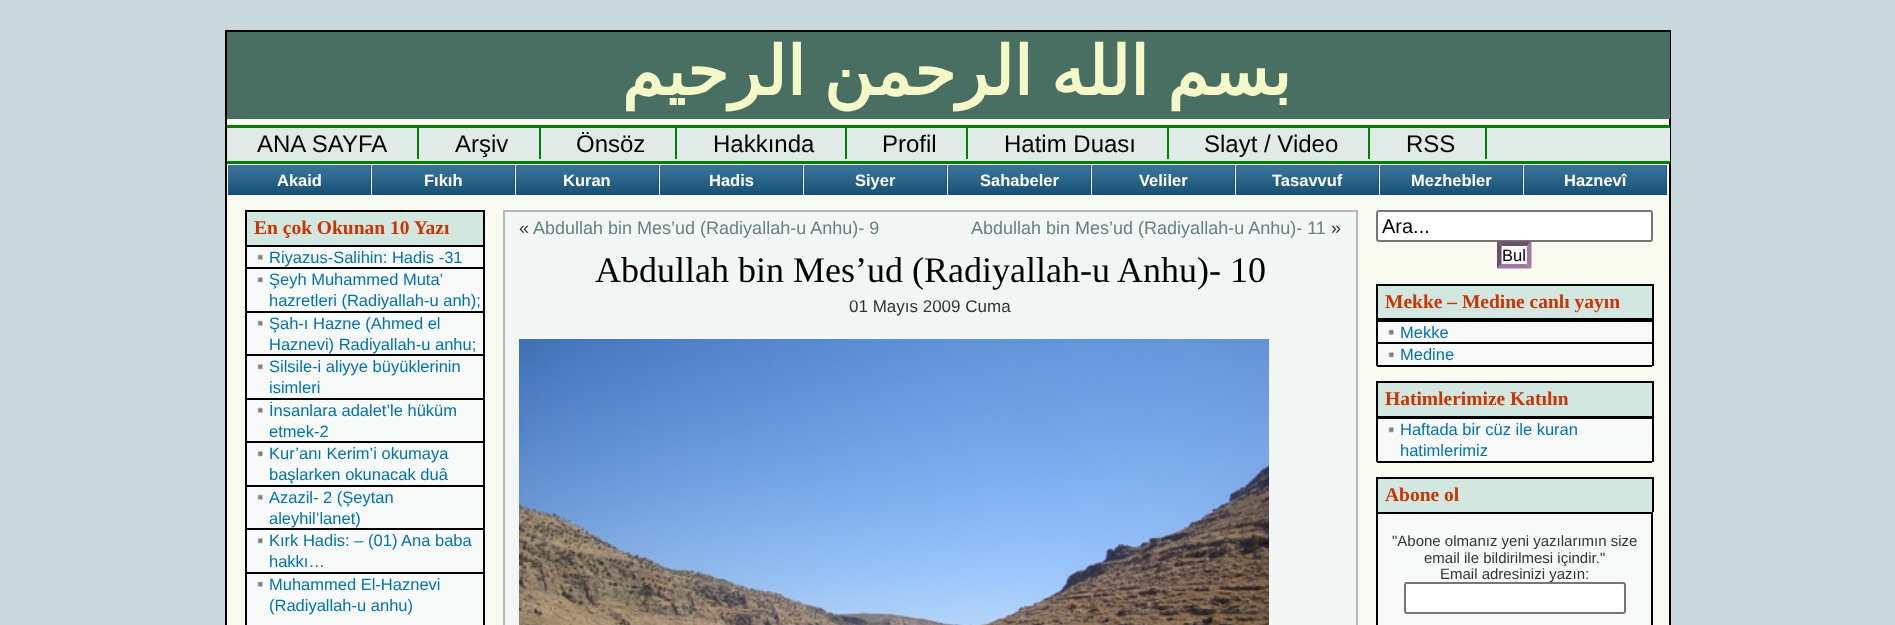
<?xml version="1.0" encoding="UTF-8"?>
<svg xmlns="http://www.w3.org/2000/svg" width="1895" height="625">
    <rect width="100%" height="100%" fill="#C8D8DD"/>
    <rect x="227" y="119" width="1442" height="506" fill="#F9FBF0"/>
    <rect x="226" y="31" width="1444" height="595" fill="none" stroke="#000000" stroke-width="2"/>
    <rect x="227" y="32" width="1443" height="87" fill="#486F62"/>
    <text x="1291" y="95" word-spacing="-3" font-family="DejaVu Sans" font-size="67.5" font-weight="700" direction="rtl" fill="#F5F9C8">بسم الله الرحمن الرحيم</text>
    <rect x="227" y="128" width="1443" height="33" fill="#E0EBE8"/>
    <rect x="227" y="125" width="1443" height="3" fill="#008000"/>
    <rect x="227" y="161" width="1443" height="3" fill="#008000"/>
    <text x="257" y="152" font-family="Liberation Sans" font-size="24" fill="#000000">ANA SAYFA</text>
    <rect x="417" y="128" width="2" height="31" fill="#008000"/>
    <text x="455" y="152" font-family="Liberation Sans" font-size="24" fill="#000000">Arşiv</text>
    <rect x="539" y="128" width="2" height="31" fill="#008000"/>
    <text x="576" y="152" font-family="Liberation Sans" font-size="24" fill="#000000">Önsöz</text>
    <rect x="675" y="128" width="2" height="31" fill="#008000"/>
    <text x="713" y="152" font-family="Liberation Sans" font-size="24" fill="#000000">Hakkında</text>
    <rect x="845" y="128" width="2" height="31" fill="#008000"/>
    <text x="882" y="152" font-family="Liberation Sans" font-size="24" fill="#000000">Profil</text>
    <rect x="966" y="128" width="2" height="31" fill="#008000"/>
    <text x="1004" y="152" font-family="Liberation Sans" font-size="24" fill="#000000">Hatim Duası</text>
    <rect x="1167" y="128" width="2" height="31" fill="#008000"/>
    <text x="1204" y="152" font-family="Liberation Sans" font-size="24" fill="#000000">Slayt / Video</text>
    <rect x="1368" y="128" width="2" height="31" fill="#008000"/>
    <text x="1406" y="152" font-family="Liberation Sans" font-size="24" fill="#000000">RSS</text>
    <rect x="1485" y="128" width="2" height="31" fill="#008000"/>
    <rect x="370" y="165" width="1" height="30" fill="#0033CC"/>
    <image x="228" y="165" width="143" height="30" href="img_01.png"/>
    <text x="277" y="186" font-family="Liberation Sans" font-size="16.5" font-weight="700" fill="#FFFFFF">Akaid</text>
    <rect x="514" y="165" width="1" height="30" fill="#0033CC"/>
    <image x="372" y="165" width="143" height="30" href="img_01.png"/>
    <text x="424" y="186" font-family="Liberation Sans" font-size="16.5" font-weight="700" fill="#FFFFFF">Fıkıh</text>
    <rect x="658" y="165" width="1" height="30" fill="#0033CC"/>
    <image x="516" y="165" width="143" height="30" href="img_01.png"/>
    <text x="563" y="186" font-family="Liberation Sans" font-size="16.5" font-weight="700" fill="#FFFFFF">Kuran</text>
    <rect x="802" y="165" width="1" height="30" fill="#0033CC"/>
    <image x="660" y="165" width="143" height="30" href="img_01.png"/>
    <text x="709" y="186" font-family="Liberation Sans" font-size="16.5" font-weight="700" fill="#FFFFFF">Hadis</text>
    <rect x="946" y="165" width="1" height="30" fill="#0033CC"/>
    <image x="804" y="165" width="143" height="30" href="img_01.png"/>
    <text x="855" y="186" font-family="Liberation Sans" font-size="16.5" font-weight="700" fill="#FFFFFF">Siyer</text>
    <rect x="1090" y="165" width="1" height="30" fill="#0033CC"/>
    <image x="948" y="165" width="143" height="30" href="img_01.png"/>
    <text x="980" y="186" font-family="Liberation Sans" font-size="16.5" font-weight="700" fill="#FFFFFF">Sahabeler</text>
    <rect x="1234" y="165" width="1" height="30" fill="#0033CC"/>
    <image x="1092" y="165" width="143" height="30" href="img_01.png"/>
    <text x="1139" y="186" font-family="Liberation Sans" font-size="16.5" font-weight="700" fill="#FFFFFF">Veliler</text>
    <rect x="1378" y="165" width="1" height="30" fill="#0033CC"/>
    <image x="1236" y="165" width="143" height="30" href="img_01.png"/>
    <text x="1272" y="186" font-family="Liberation Sans" font-size="16.5" font-weight="700" fill="#FFFFFF">Tasavvuf</text>
    <rect x="1522" y="165" width="1" height="30" fill="#0033CC"/>
    <image x="1380" y="165" width="143" height="30" href="img_01.png"/>
    <text x="1411" y="186" font-family="Liberation Sans" font-size="16.5" font-weight="700" fill="#FFFFFF">Mezhebler</text>
    <rect x="1666" y="165" width="1" height="30" fill="#0033CC"/>
    <image x="1524" y="165" width="143" height="30" href="img_01.png"/>
    <text x="1564" y="186" font-family="Liberation Sans" font-size="16.5" font-weight="700" fill="#FFFFFF">Haznevî</text>
    <rect x="247" y="212" width="236" height="33" fill="#D3E7E1"/>
    <rect x="245" y="210" width="240" height="2" fill="#000000"/>
    <rect x="483" y="210" width="2" height="35" fill="#000000"/>
    <rect x="245" y="210" width="2" height="35" fill="#000000"/>
    <text x="254" y="234" font-family="Liberation Serif" font-size="19.5" font-weight="700" fill="#CC3300">En çok Okunan 10 Yazı</text>
    <rect x="247" y="247" width="236" height="378" fill="#F8FAF9"/>
    <rect x="245" y="245" width="240" height="2" fill="#000000"/>
    <rect x="483" y="245" width="2" height="380" fill="#000000"/>
    <rect x="245" y="245" width="2" height="380" fill="#000000"/>
    <image x="257" y="254" width="6" height="6" href="img_02.png"/>
    <rect x="246" y="267" width="237" height="2" fill="#000000"/>
    <text x="269" y="263" font-family="Liberation Sans" font-size="16.5" fill="#0073AA">Riyazus-Salihin: Hadis -31</text>
    <image x="257" y="277" width="6" height="6" href="img_03.png"/>
    <rect x="246" y="311" width="237" height="2" fill="#000000"/>
    <text font-family="Liberation Sans" font-size="16.5" fill="#0073AA">
        <tspan x="269" y="285">Şeyh Muhammed Muta’</tspan>
        <tspan x="269" y="306">hazretleri (Radiyallah-u anh);</tspan>
    </text>
    <image x="257" y="320" width="6" height="6" href="img_02.png"/>
    <rect x="246" y="354" width="237" height="2" fill="#000000"/>
    <text font-family="Liberation Sans" font-size="16.5" fill="#0073AA">
        <tspan x="269" y="329">Şah-ı Hazne (Ahmed el</tspan>
        <tspan x="269" y="350">Haznevi) Radiyallah-u anhu;</tspan>
    </text>
    <image x="257" y="364" width="6" height="6" href="img_03.png"/>
    <rect x="246" y="398" width="237" height="2" fill="#000000"/>
    <text font-family="Liberation Sans" font-size="16.5" fill="#0073AA">
        <tspan x="269" y="372">Silsile-i aliyye büyüklerinin</tspan>
        <tspan x="269" y="393">isimleri</tspan>
    </text>
    <image x="257" y="407" width="6" height="6" href="img_02.png"/>
    <rect x="246" y="441" width="237" height="2" fill="#000000"/>
    <text font-family="Liberation Sans" font-size="16.5" fill="#0073AA">
        <tspan x="269" y="416">İnsanlara adalet’le hüküm</tspan>
        <tspan x="269" y="437">etmek-2</tspan>
    </text>
    <image x="257" y="451" width="6" height="6" href="img_03.png"/>
    <rect x="246" y="485" width="237" height="2" fill="#000000"/>
    <text font-family="Liberation Sans" font-size="16.5" fill="#0073AA">
        <tspan x="269" y="459">Kur’anı Kerim’i okumaya</tspan>
        <tspan x="269" y="480">başlarken okunacak duâ</tspan>
    </text>
    <image x="257" y="494" width="6" height="6" href="img_02.png"/>
    <rect x="246" y="528" width="237" height="2" fill="#000000"/>
    <text font-family="Liberation Sans" font-size="16.5" fill="#0073AA">
        <tspan x="269" y="503">Azazil- 2 (Şeytan</tspan>
        <tspan x="269" y="524">aleyhil’lanet)</tspan>
    </text>
    <image x="257" y="538" width="6" height="6" href="img_03.png"/>
    <rect x="246" y="572" width="237" height="2" fill="#000000"/>
    <text font-family="Liberation Sans" font-size="16.5" fill="#0073AA">
        <tspan x="269" y="546">Kırk Hadis: – (01) Ana baba</tspan>
        <tspan x="269" y="567">hakkı…</tspan>
    </text>
    <image x="257" y="581" width="6" height="6" href="img_02.png"/>
    <text font-family="Liberation Sans" font-size="16.5" fill="#0073AA">
        <tspan x="269" y="590">Muhammed El-Haznevi</tspan>
        <tspan x="269" y="611">(Radiyallah-u anhu)</tspan>
    </text>
    <rect x="504" y="211" width="853" height="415" fill="#F2F7F5" stroke="#AEBABB" stroke-width="2"/>
    <text x="519" y="234" font-family="Liberation Sans" font-size="18" fill="#333333">«</text>
    <text x="533" y="234" font-family="Liberation Sans" font-size="18" fill="#658181">Abdullah bin Mes’ud (Radiyallah-u Anhu)- 9</text>
    <text x="971" y="234" font-family="Liberation Sans" font-size="18" fill="#658181">Abdullah bin Mes’ud (Radiyallah-u Anhu)- 11</text>
    <text x="1331" y="234" font-family="Liberation Sans" font-size="18" fill="#333333">»</text>
    <text x="595" y="282" font-family="Liberation Serif" font-size="36" fill="#000000">Abdullah bin Mes’ud (Radiyallah-u Anhu)- 10</text>
    <text x="849" y="312" font-family="Liberation Sans" font-size="17" fill="#333333">01 Mayıs 2009 Cuma</text>
    <image x="519" y="339" width="750" height="286" href="img_04.png"/>
    <rect x="1377" y="211" width="275" height="30" rx="2" fill="#FFFFFF" stroke="#767676" stroke-width="2"/>
    <text x="1382" y="233" font-family="Liberation Sans" font-size="20" fill="#000000">Ara...</text>
    <rect x="1497" y="242" width="35" height="27" fill="#FAF8FA"/>
    <path d="M 1497 241.5 H 1531.5 L 1527 246 H 1501.5 Z" fill="#6A516A"/>
    <path d="M 1531.5 241.5 V 268.5 L 1527 264 V 246 Z" fill="#9F799F"/>
    <path d="M 1531.5 268.5 H 1497 L 1501.5 264 H 1527 Z" fill="#9F799F"/>
    <path d="M 1497 268.5 V 241.5 L 1501.5 246 V 264 Z" fill="#6A516A"/>
    <text x="1502" y="261" font-family="Liberation Sans" font-size="16.5" fill="#000000">Bul</text>
    <rect x="1378" y="286" width="274" height="32" fill="#D3E7E1"/>
    <rect x="1376" y="284" width="277" height="2" fill="#000000"/>
    <rect x="1652" y="284" width="2" height="34" fill="#000000"/>
    <rect x="1376" y="284" width="2" height="34" fill="#000000"/>
    <text x="1385" y="308" font-family="Liberation Serif" font-size="19.5" font-weight="700" fill="#CC3300">Mekke – Medine canlı yayın</text>
    <rect x="1378" y="322" width="274" height="43" fill="#F8FAF9"/>
    <rect x="1376" y="318" width="277" height="2" fill="#000000"/>
    <rect x="1652" y="318" width="2" height="48" fill="#000000"/>
    <rect x="1376" y="318" width="2" height="48" fill="#000000"/>
    <rect x="1377" y="320" width="275" height="2" fill="#000000"/>
    <image x="1388" y="329" width="6" height="6" href="img_02.png"/>
    <rect x="1377" y="342" width="275" height="2" fill="#000000"/>
    <text x="1400" y="338" font-family="Liberation Sans" font-size="16.5" fill="#0073AA">Mekke</text>
    <image x="1388" y="352" width="6" height="6" href="img_03.png"/>
    <rect x="1377" y="365" width="275" height="2" fill="#000000"/>
    <text x="1400" y="360" font-family="Liberation Sans" font-size="16.5" fill="#0073AA">Medine</text>
    <rect x="1378" y="383" width="274" height="33" fill="#D3E7E1"/>
    <rect x="1376" y="381" width="277" height="2" fill="#000000"/>
    <rect x="1652" y="381" width="2" height="35" fill="#000000"/>
    <rect x="1376" y="381" width="2" height="35" fill="#000000"/>
    <text x="1385" y="405" font-family="Liberation Serif" font-size="19.5" font-weight="700" fill="#CC3300">Hatimlerimize Katılın</text>
    <rect x="1378" y="419" width="274" height="42" fill="#F8FAF9"/>
    <rect x="1376" y="416" width="277" height="1" fill="#000000"/>
    <rect x="1652" y="416" width="2" height="46" fill="#000000"/>
    <rect x="1376" y="416" width="2" height="46" fill="#000000"/>
    <rect x="1377" y="417" width="275" height="2" fill="#000000"/>
    <image x="1388" y="427" width="6" height="6" href="img_03.png"/>
    <rect x="1377" y="461" width="275" height="2" fill="#000000"/>
    <text font-family="Liberation Sans" font-size="16.5" fill="#0073AA">
        <tspan x="1400" y="435">Haftada bir cüz ile kuran</tspan>
        <tspan x="1400" y="456">hatimlerimiz</tspan>
    </text>
    <rect x="1378" y="479" width="274" height="33" fill="#D3E7E1"/>
    <rect x="1376" y="477" width="277" height="2" fill="#000000"/>
    <rect x="1652" y="477" width="2" height="35" fill="#000000"/>
    <rect x="1376" y="477" width="2" height="35" fill="#000000"/>
    <text x="1385" y="501" font-family="Liberation Serif" font-size="19.5" font-weight="700" fill="#CC3300">Abone ol</text>
    <rect x="1377" y="513" width="275" height="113" fill="#F8FAF9" stroke="#000000" stroke-width="2"/>
    <text x="1392" y="546" font-family="Liberation Sans" font-size="15" fill="#333333">"Abone olmanız yeni yazılarımın size</text>
    <text x="1424" y="563" font-family="Liberation Sans" font-size="15" fill="#333333">email ile bildirilmesi içindir."</text>
    <text x="1440" y="579" font-family="Liberation Sans" font-size="15" fill="#333333">Email adresinizi yazın:</text>
    <rect x="1405" y="583" width="220" height="30" rx="2" fill="#FFFFFF" stroke="#767676" stroke-width="2"/>
</svg>
